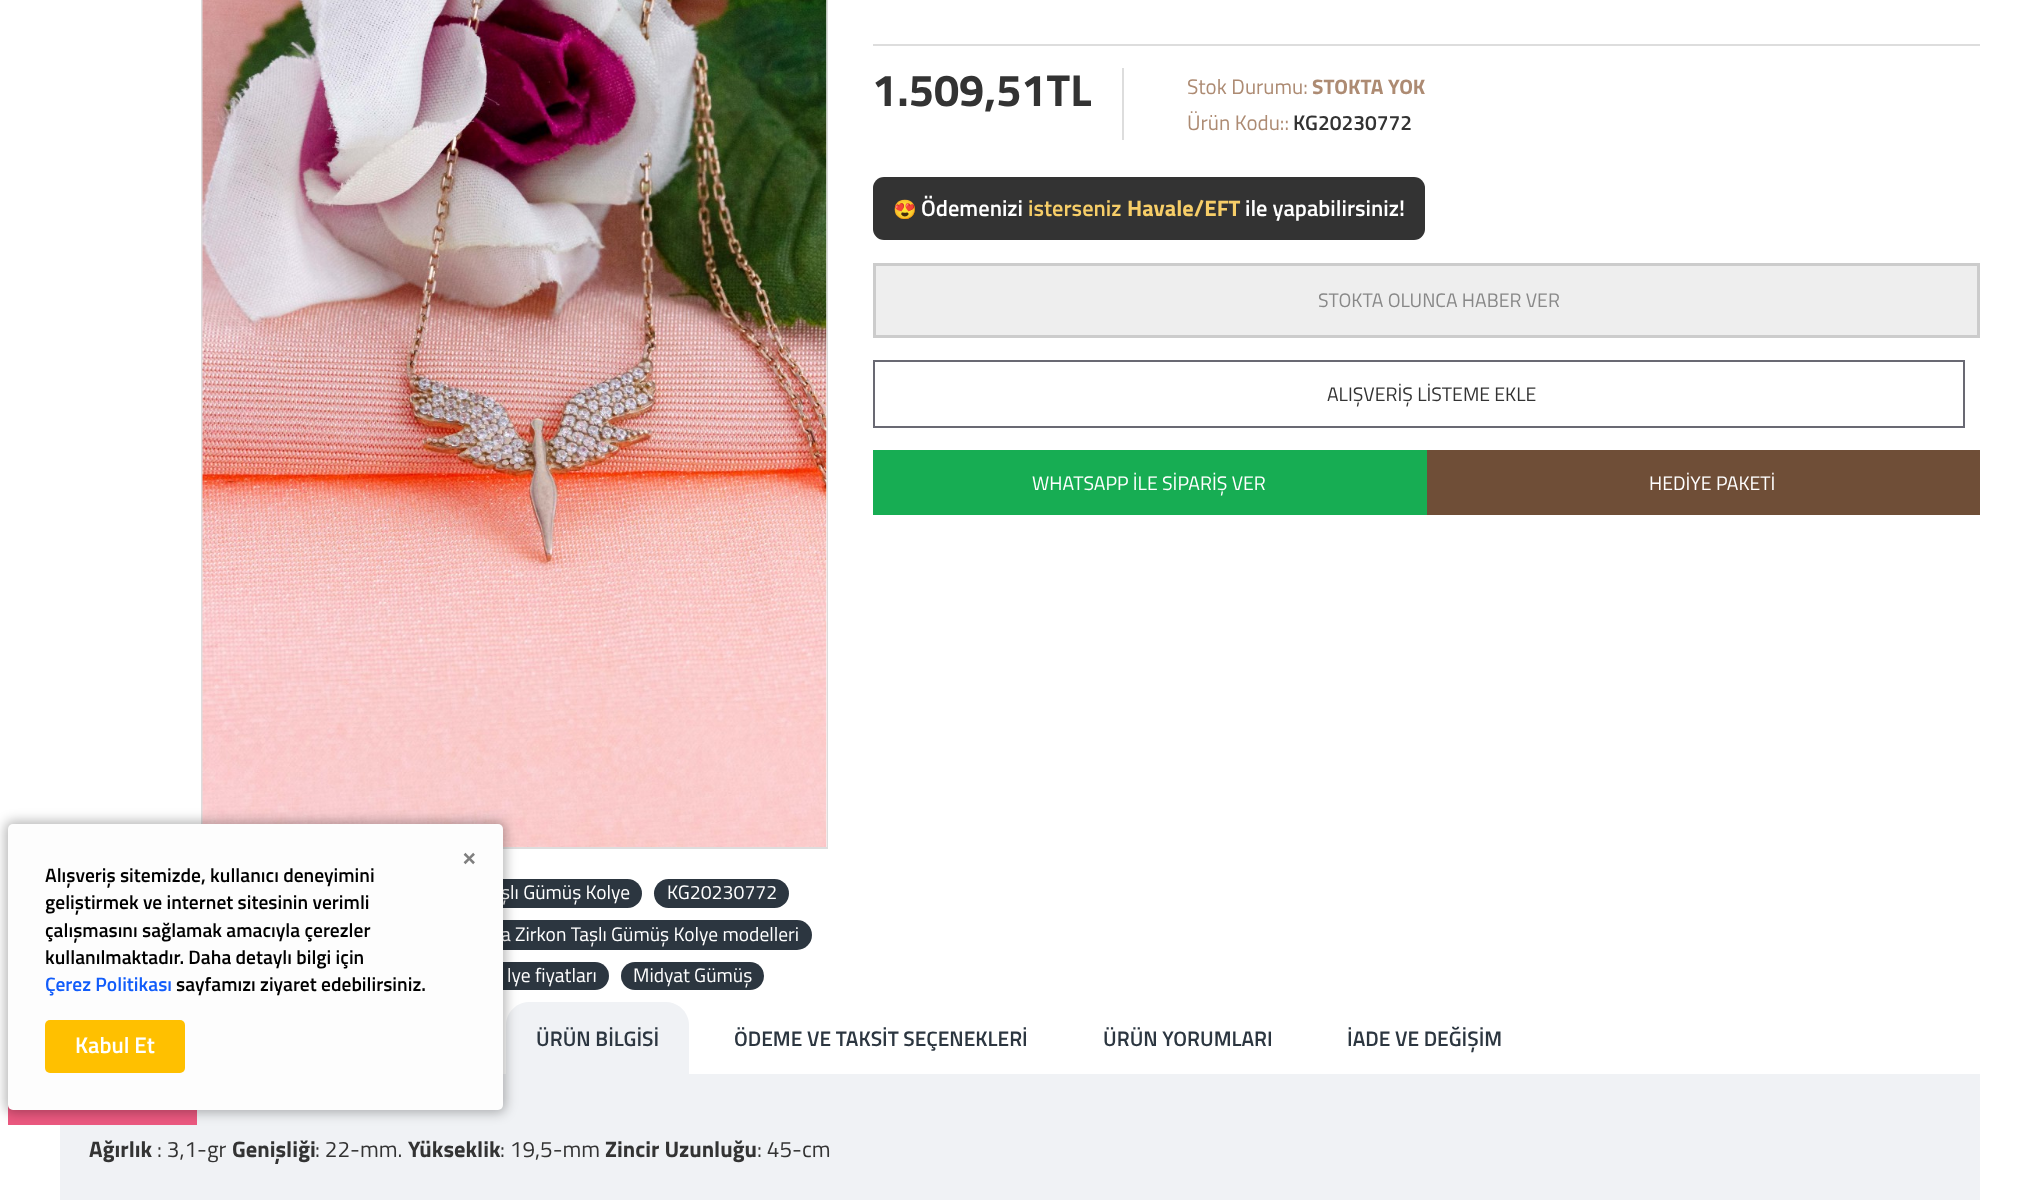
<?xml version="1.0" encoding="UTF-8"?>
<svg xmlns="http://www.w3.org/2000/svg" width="2038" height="1200">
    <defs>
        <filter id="blur1" x="-50%" y="-200%" width="200%" height="500%"><feGaussianBlur stdDeviation="6"/></filter>
    </defs>
    <rect width="100%" height="100%" fill="#FFFFFF"/>
    <rect x="873" y="44" width="1107" height="2" fill="#DDDDDD"/>
    <text x="872" y="106" font-family="Titillium Web" font-size="45" font-weight="700" fill="#333333">1.509,51TL</text>
    <rect x="1122" y="68" width="2" height="72" fill="#DDDDDD"/>
    <text x="1187" y="94" font-family="Titillium Web" font-size="21" fill="#AD8B73">Stok Durumu:</text>
    <text x="1312" y="94" font-family="Titillium Web" font-size="21" font-weight="700" fill="#AD8B73">STOKTA YOK</text>
    <text x="1187" y="130" font-family="Titillium Web" font-size="21" fill="#AD8B73">Ürün Kodu::</text>
    <text x="1293" y="130" font-family="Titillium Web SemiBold" font-size="21" font-weight="600" fill="#333333">KG20230772</text>
    <rect x="873" y="177" width="552" height="63" rx="11" fill="#333333"/>
    <text x="893" y="216" font-family="Noto Color Emoji" font-size="19" font-weight="700" fill="#FFFFFF">😍</text>
    <text x="921" y="216" font-family="Titillium Web SemiBold" font-size="22.5" font-weight="600" fill="#FFFFFF">Ödemenizi</text>
    <text x="1028" y="216" font-family="Titillium Web SemiBold" font-size="22.5" font-weight="600" fill="#F7CE68">isterseniz</text>
    <text x="1127" y="216" font-family="Titillium Web" font-size="22.5" font-weight="700" fill="#F7CE68">Havale/EFT</text>
    <text x="1245" y="216" font-family="Titillium Web SemiBold" font-size="22.5" font-weight="600" fill="#FFFFFF">ile yapabilirsiniz!</text>
    <rect x="874.5" y="264.5" width="1104" height="72" fill="#EEEEEE" stroke="#CCCCCC" stroke-width="3"/>
    <text x="1318" y="307" font-family="Titillium Web" font-size="19.5" fill="#888888">STOKTA OLUNCA HABER VER</text>
    <rect x="874" y="361" width="1090" height="66" fill="none" stroke="#696973" stroke-width="2"/>
    <text x="1327" y="401" font-family="Titillium Web" font-size="19.5" fill="#333333">ALIŞVERİŞ LİSTEME EKLE</text>
    <rect x="873" y="450" width="554" height="65" fill="#17AD53"/>
    <text x="1032" y="490" font-family="Titillium Web" font-size="19.5" fill="#FFFFFF">WHATSAPP İLE SİPARİŞ VER</text>
    <rect x="1427" y="450" width="553" height="65" fill="#6F4E37"/>
    <text x="1649" y="490" font-family="Titillium Web" font-size="19.5" fill="#FFFFFF">HEDİYE PAKETİ</text>
    <rect x="202" y="-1" width="625" height="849" fill="none" stroke="#DDDDDD" stroke-width="2"/>
    <image x="202" y="0" width="625" height="847" href="img_01.png"/>
    <rect x="826" y="0" width="1" height="847" fill="#FFFFFF" fill-opacity="0.5"/>
    <rect x="176" y="879" width="466" height="29" rx="14.5" fill="#2C3640"/>
    <text x="501" y="899" font-family="Titillium Web" font-size="19.5" fill="#FFFFFF">şlı Gümüş Kolye</text>
    <rect x="654" y="879" width="135" height="29" rx="14.5" fill="#2C3640"/>
    <text x="667" y="899" font-family="Titillium Web" font-size="19.5" fill="#FFFFFF">KG20230772</text>
    <rect x="263" y="920" width="549" height="30" rx="15" fill="#2C3640"/>
    <text x="501" y="941" font-family="Titillium Web" font-size="19.5" fill="#FFFFFF">a Zirkon Taşlı Gümüş Kolye modelleri</text>
    <rect x="75" y="962" width="534" height="28" rx="14" fill="#2C3640"/>
    <text x="507" y="982" font-family="Titillium Web" font-size="19.5" fill="#FFFFFF">lye fiyatları</text>
    <rect x="621" y="962" width="143" height="28" rx="14" fill="#2C3640"/>
    <text x="633" y="982" font-family="Titillium Web" font-size="19.5" fill="#FFFFFF">Midyat Gümüş</text>
    <path d="M 529 1002 H 666 C 678.5 1002 689 1012.5 689 1025 V 1074 H 506 V 1025 C 506 1012.5 516.5 1002 529 1002 Z" fill="#F0F2F5"/>
    <text x="536" y="1046" font-family="Titillium Web SemiBold" font-size="21" font-weight="600" fill="#2C3640">ÜRÜN BİLGİSİ</text>
    <text x="734" y="1046" font-family="Titillium Web SemiBold" font-size="21" font-weight="600" fill="#2C3640">ÖDEME VE TAKSİT SEÇENEKLERİ</text>
    <text x="1103" y="1046" font-family="Titillium Web SemiBold" font-size="21" font-weight="600" fill="#2C3640">ÜRÜN YORUMLARI</text>
    <text x="1347" y="1046" font-family="Titillium Web SemiBold" font-size="21" font-weight="600" fill="#2C3640">İADE VE DEĞİŞİM</text>
    <rect x="60" y="1074" width="1920" height="126" fill="#F0F2F5"/>
    <text x="89" y="1157" font-family="Titillium Web" font-size="22.5" font-weight="700" fill="#333333">Ağırlık</text>
    <text x="157" y="1157" font-family="Titillium Web" font-size="22.5" fill="#333333">: 3,1-gr</text>
    <text x="232" y="1157" font-family="Titillium Web" font-size="22.5" font-weight="700" fill="#333333">Genişliği</text>
    <text x="315" y="1157" font-family="Titillium Web" font-size="22.5" fill="#333333">: 22-mm.</text>
    <text x="408" y="1157" font-family="Titillium Web" font-size="22.5" font-weight="700" fill="#333333">Yükseklik</text>
    <text x="500" y="1157" font-family="Titillium Web" font-size="22.5" fill="#333333">: 19,5-mm</text>
    <text x="605" y="1157" font-family="Titillium Web" font-size="22.5" font-weight="700" fill="#333333">Zincir Uzunluğu</text>
    <text x="757" y="1157" font-family="Titillium Web" font-size="22.5" fill="#333333">: 45-cm</text>
    <rect x="8" y="1105" width="189" height="20" fill="#EB587F"/>
    <rect x="5" y="821" width="501" height="292" rx="8" fill="#000000" fill-opacity="0.28" filter="url(#blur1)"/>
    <rect x="8" y="824" width="495" height="286" rx="5" fill="#FDFDFD"/>
    <text x="462" y="865" font-family="Titillium Web SemiBold" font-size="26" font-weight="600" fill="#7F7F7F">×</text>
    <text font-family="Titillium Web SemiBold" font-size="19.5" font-weight="600" fill="#000000">
        <tspan x="45" y="882">Alışveriş sitemizde, kullanıcı deneyimini</tspan>
        <tspan x="45" y="909">geliştirmek ve internet sitesinin verimli</tspan>
        <tspan x="45" y="937">çalışmasını sağlamak amacıyla çerezler</tspan>
        <tspan x="45" y="964">kullanılmaktadır. Daha detaylı bilgi için</tspan>
    </text>
    <text x="45" y="991" font-family="Titillium Web SemiBold" font-size="19.5" font-weight="600" fill="#115CFA">Çerez Politikası</text>
    <text x="176" y="991" font-family="Titillium Web SemiBold" font-size="19.5" font-weight="600" fill="#000000">sayfamızı ziyaret edebilirsiniz.</text>
    <rect x="45" y="1020" width="140" height="53" rx="5" fill="#FFC000"/>
    <text x="75" y="1053" font-family="Titillium Web SemiBold" font-size="22.5" font-weight="600" fill="#FFFFFF">Kabul Et</text>
</svg>
